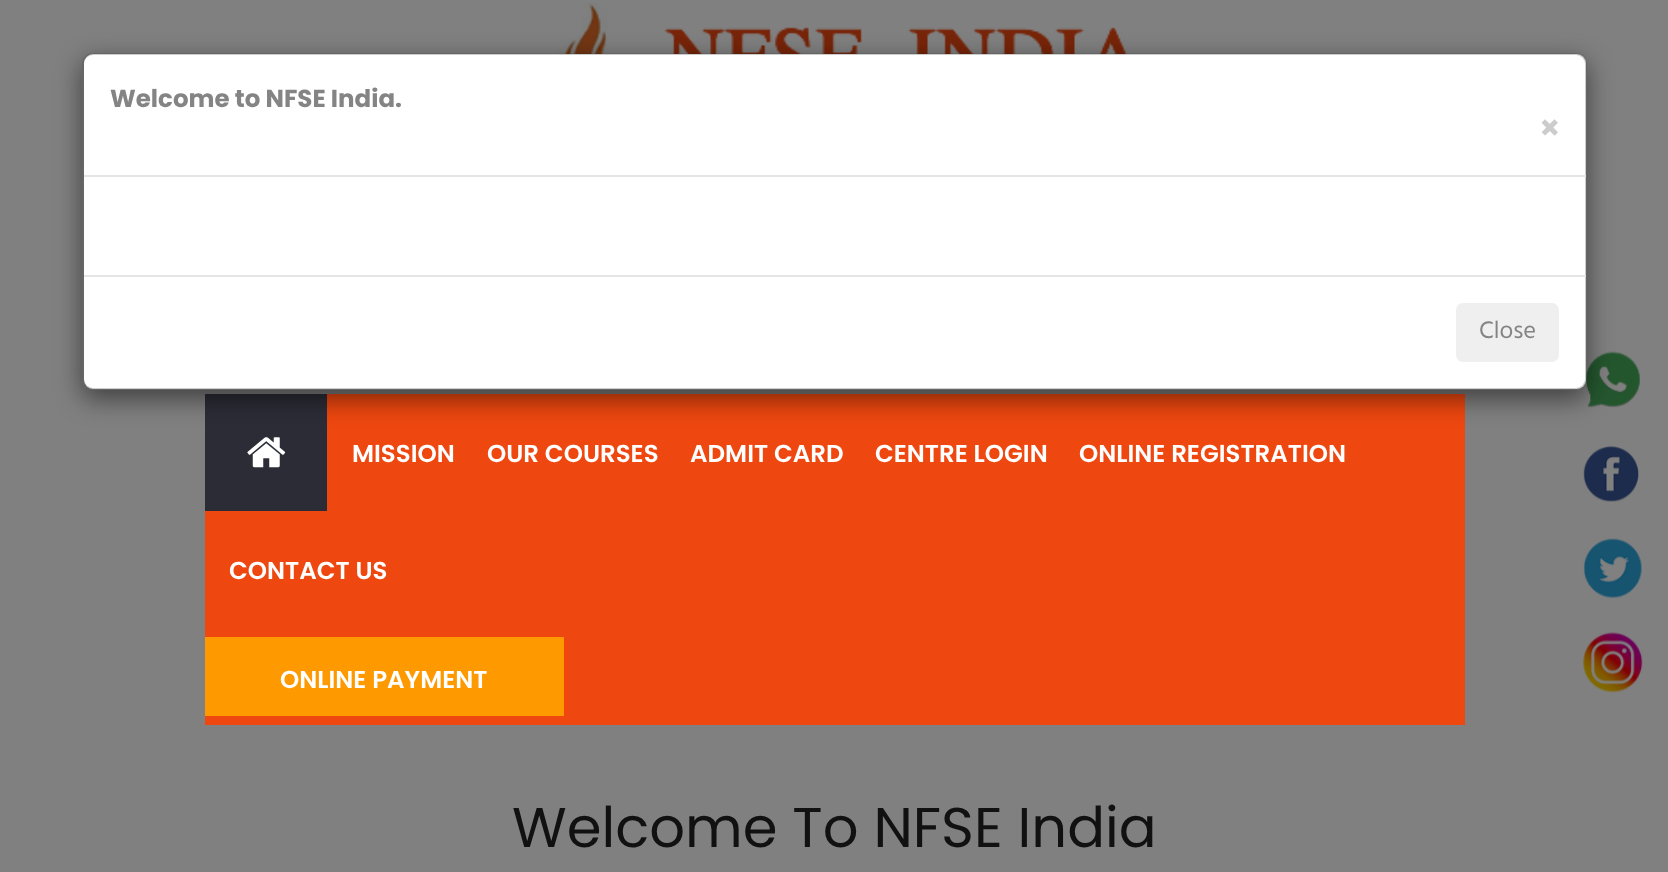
<?xml version="1.0" encoding="UTF-8"?>
<svg xmlns="http://www.w3.org/2000/svg" width="1668" height="872">
    <defs>
        <clipPath id="clip1"><path d="M 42 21 H 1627 V 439 H 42 Z M 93 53 H 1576 C 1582 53 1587 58 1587 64 V 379 C 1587 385 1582 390 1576 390 H 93 C 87 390 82 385 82 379 V 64 C 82 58 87 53 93 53 Z" clip-rule="evenodd"/></clipPath>
        <filter id="blur1" x="-50%" y="-200%" width="200%" height="500%"><feGaussianBlur stdDeviation="13"/></filter>
    </defs>
    <rect width="100%" height="100%" fill="#808080"/>
    <image x="519" y="3" width="609" height="51" href="img_01.png"/>
    <rect x="205" y="394" width="1260" height="331" fill="#EE470F"/>
    <rect x="205" y="394" width="122" height="117" fill="#2B2C36"/>
    <image x="247" y="437" width="39" height="31" href="img_02.png"/>
    <image x="1585" y="351" width="55" height="57" href="img_03.png"/>
    <g clip-path="url(#clip1)">
        <rect x="82" y="61" width="1505" height="338" rx="11" fill="#000000" fill-opacity="0.5" filter="url(#blur1)"/>
    </g>
    <rect x="84" y="54" width="1502" height="335" rx="9" fill="#FFFFFF"/>
    <rect x="83" y="54" width="1503" height="335" rx="10" fill="none" stroke="#000000" stroke-opacity="0.2" stroke-width="2"/>
    <rect x="84" y="175" width="1502" height="2" fill="#E5E5E5"/>
    <text x="110" y="107" font-family="Poppins" font-size="24.5" font-weight="700" fill="#848484">Welcome to NFSE India.</text>
    <text x="1540" y="140" font-family="Hind" font-size="37" font-weight="700" fill="#CCCCCC">×</text>
    <rect x="84" y="275" width="1502" height="2" fill="#E5E5E5"/>
    <rect x="1456" y="303" width="103" height="59" rx="7" fill="#EFEFEF"/>
    <text x="1479" y="338" font-family="Hind" font-size="24.5" fill="#848484">Close</text>
    <text x="352" y="462" font-family="Poppins" font-size="24.5" font-weight="600" fill="#FFFFFF">MISSION</text>
    <text x="487" y="462" font-family="Poppins" font-size="24.5" font-weight="600" fill="#FFFFFF">OUR COURSES</text>
    <text x="690" y="462" font-family="Poppins" font-size="24.5" font-weight="600" fill="#FFFFFF">ADMIT CARD</text>
    <text x="875" y="462" font-family="Poppins" font-size="24.5" font-weight="600" fill="#FFFFFF">CENTRE LOGIN</text>
    <text x="1079" y="462" font-family="Poppins" font-size="24.5" font-weight="600" fill="#FFFFFF">ONLINE REGISTRATION</text>
    <text x="229" y="579" font-family="Poppins" font-size="24.5" font-weight="600" fill="#FFFFFF">CONTACT US</text>
    <rect x="205" y="637" width="359" height="79" fill="#FF9900"/>
    <text x="280" y="688" font-family="Poppins" font-size="24.5" font-weight="600" fill="#FFFFFF">ONLINE PAYMENT</text>
    <text x="512" y="847" font-family="Poppins" font-size="56" fill="#111111">Welcome To NFSE India</text>
    <image x="1583" y="446" width="56" height="56" href="img_04.png"/>
    <image x="1583" y="538" width="59" height="61" href="img_05.png"/>
    <image x="1583" y="632" width="60" height="61" href="img_06.png"/>
</svg>
